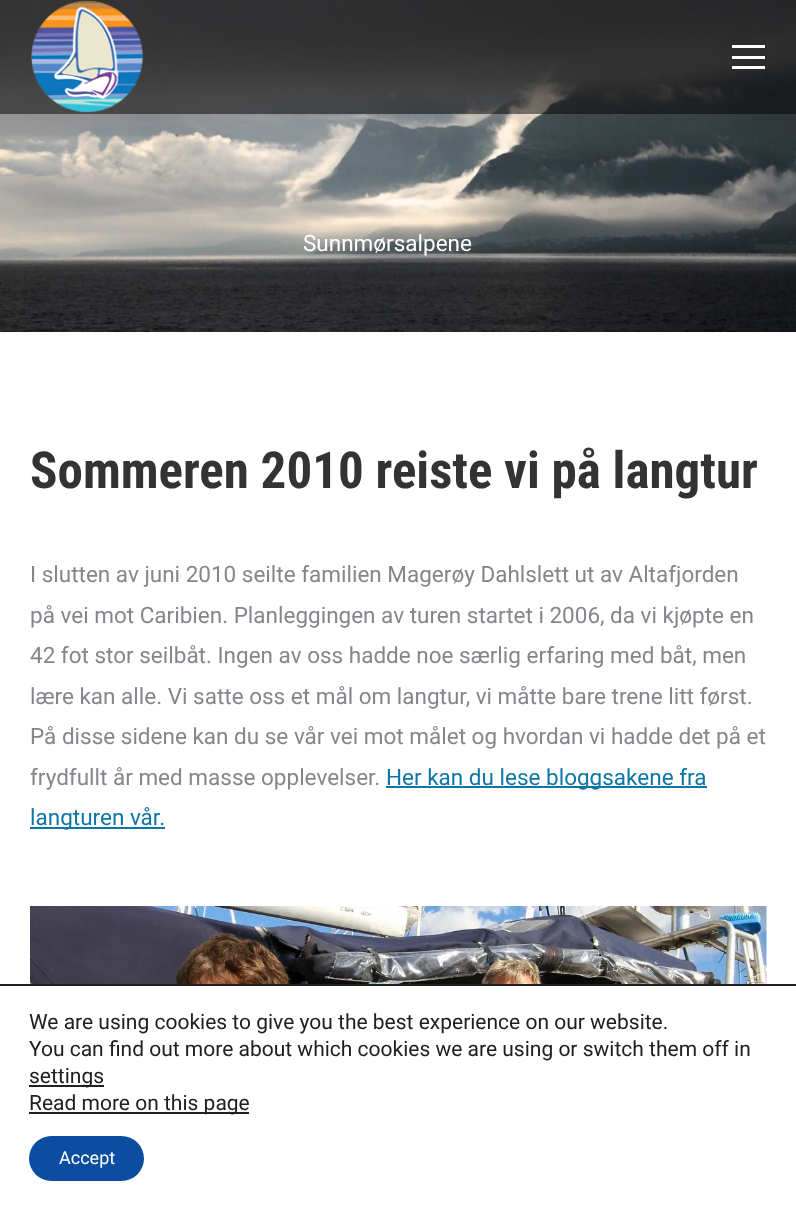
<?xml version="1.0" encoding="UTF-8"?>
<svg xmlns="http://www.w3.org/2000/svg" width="796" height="1207">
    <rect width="100%" height="100%" fill="#FFFFFF"/>
    <image x="0" y="0" width="796" height="332" href="img_02.png"/>
    <rect x="0" y="0" width="796" height="114" fill="#000000" fill-opacity="0.5"/>
    <image x="31" y="0" width="113" height="113" href="img_01.png"/>
    <rect x="732" y="45" width="33" height="3" fill="#FFFFFF"/>
    <rect x="732" y="56" width="33" height="3" fill="#FFFFFF"/>
    <rect x="732" y="66" width="33" height="3" fill="#FFFFFF"/>
    <text x="303" y="251" font-family="Roboto" font-size="22.5" fill="#FFFFFF">Sunnmørsalpene</text>
    <text x="30" y="488" font-family="Roboto Condensed" font-size="51" font-weight="700" fill="#333333">Sommeren 2010 reiste vi på langtur</text>
    <text font-family="Roboto" font-size="22.5" fill="#85868C">
        <tspan x="30" y="582">I slutten av juni 2010 seilte familien Magerøy Dahlslett ut av Altafjorden</tspan>
        <tspan x="30" y="623">på vei mot Caribien. Planleggingen av turen startet i 2006, da vi kjøpte en</tspan>
        <tspan x="30" y="663">42 fot stor seilbåt. Ingen av oss hadde noe særlig erfaring med båt, men</tspan>
        <tspan x="30" y="704">lære kan alle. Vi satte oss et mål om langtur, vi måtte bare trene litt først.</tspan>
        <tspan x="30" y="744">På disse sidene kan du se vår vei mot målet og hvordan vi hadde det på et</tspan>
        <tspan x="30" y="785">frydfullt år med masse opplevelser.</tspan>
    </text>
    <rect x="386" y="786" width="321" height="2" fill="#0D76A6"/>
    <text x="386" y="785" font-family="Roboto" font-size="22.5" fill="#0D76A6">Her kan du lese bloggsakene fra</text>
    <rect x="30" y="827" width="135" height="2" fill="#0D76A6"/>
    <text x="30" y="825" font-family="Roboto" font-size="22.5" fill="#0D76A6">langturen vår.</text>
    <image x="30" y="906" width="737" height="78" href="img_03.png"/>
    <rect x="0" y="984" width="796" height="2" fill="#202020"/>
    <text font-family="Roboto" font-size="21" fill="#202020">
        <tspan x="29" y="1029">We are using cookies to give you the best experience on our website.</tspan>
        <tspan x="29" y="1056">You can find out more about which cookies we are using or switch them off in</tspan>
    </text>
    <rect x="29" y="1085" width="75" height="2" fill="#202020"/>
    <text x="29" y="1083" font-family="Roboto" font-size="21" fill="#202020">settings</text>
    <rect x="29" y="1112" width="220" height="2" fill="#202020"/>
    <text x="29" y="1110" font-family="Roboto" font-size="21" fill="#202020">Read more on this page</text>
    <rect x="29" y="1136" width="115" height="45" rx="22.5" fill="#0C4DA2"/>
    <text x="59" y="1164" font-family="Roboto" font-size="18" fill="#FFFFFF">Accept</text>
</svg>
